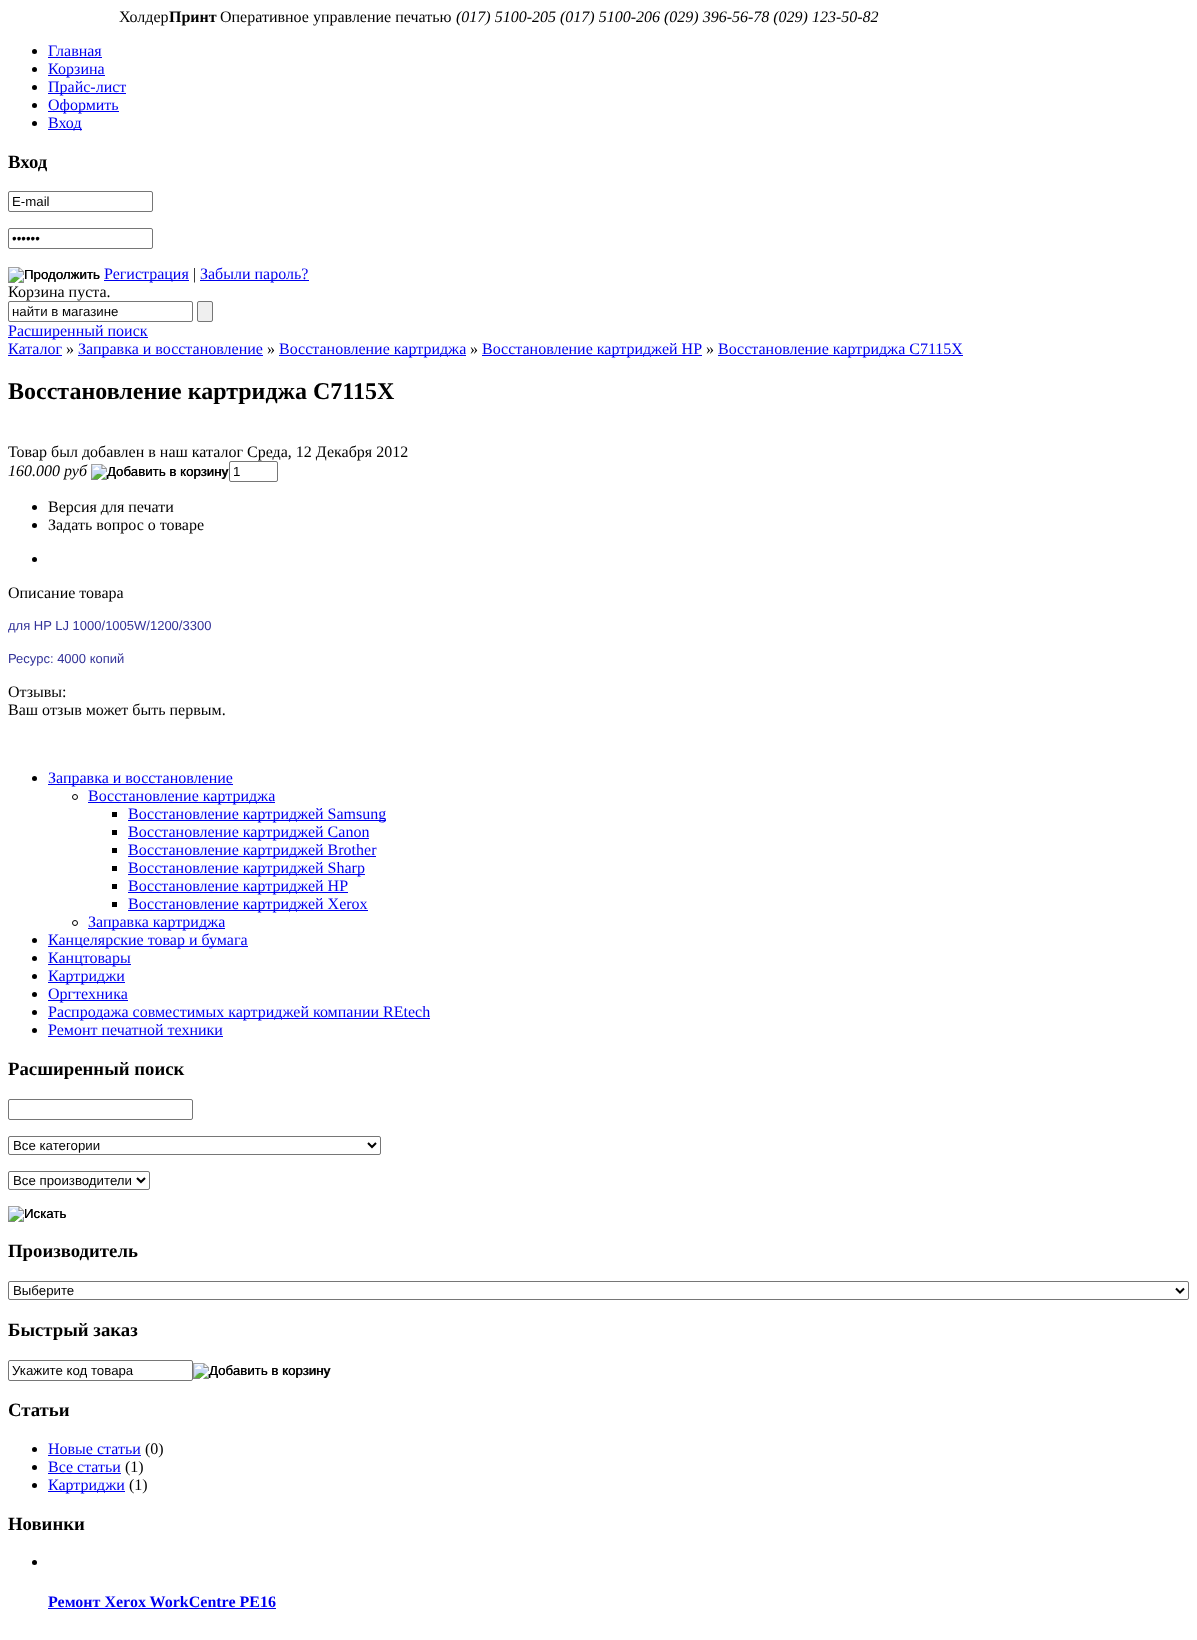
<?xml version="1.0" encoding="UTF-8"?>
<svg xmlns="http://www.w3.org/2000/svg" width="1197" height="1640">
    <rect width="100%" height="100%" fill="#FFFFFF"/>
    <text x="119" y="22" font-family="Liberation Serif" font-size="16" fill="#000000">Холдер</text>
    <text x="169" y="22" font-family="Liberation Serif" font-size="16" font-weight="700" fill="#000000">Принт</text>
    <text x="220" y="22" font-family="Liberation Serif" font-size="16" fill="#000000">Оперативное управление печатью</text>
    <text x="456" y="22" font-family="Liberation Serif" font-size="16" font-style="italic" fill="#000000">(017) 5100-205 (017) 5100-206 (029) 396-56-78 (029) 123-50-82</text>
    <circle cx="34.5" cy="51.5" r="2.5" fill="#000000"/>
    <text x="48" y="56" font-family="Liberation Serif" font-size="16" fill="#0000EE">Главная</text>
    <rect x="48" y="57" width="54" height="1" fill="#0000EE"/>
    <circle cx="34.5" cy="69.5" r="2.5" fill="#000000"/>
    <rect x="48" y="75" width="57" height="1" fill="#0000EE"/>
    <text x="48" y="74" font-family="Liberation Serif" font-size="16" fill="#0000EE">Корзина</text>
    <circle cx="34.5" cy="87.5" r="2.5" fill="#000000"/>
    <rect x="48" y="93" width="78" height="1" fill="#0000EE"/>
    <text x="48" y="92" font-family="Liberation Serif" font-size="16" fill="#0000EE">Прайс-лист</text>
    <circle cx="34.5" cy="105.5" r="2.5" fill="#000000"/>
    <rect x="48" y="111" width="71" height="1" fill="#0000EE"/>
    <text x="48" y="110" font-family="Liberation Serif" font-size="16" fill="#0000EE">Оформить</text>
    <circle cx="34.5" cy="123.5" r="2.5" fill="#000000"/>
    <rect x="48" y="129" width="34" height="1" fill="#0000EE"/>
    <text x="48" y="128" font-family="Liberation Serif" font-size="16" fill="#0000EE">Вход</text>
    <text x="8" y="168" font-family="Liberation Serif" font-size="18.75" font-weight="700" fill="#000000">Вход</text>
    <rect x="8.5" y="191.5" width="144" height="20" rx="1.5" fill="none" stroke="#767676"/>
    <text x="12" y="206" font-family="Liberation Sans" font-size="13.25" fill="#000000">E-mail</text>
    <rect x="8.5" y="228.5" width="144" height="20" rx="1.5" fill="none" stroke="#767676"/>
    <text x="12" y="243" font-family="Liberation Sans" font-size="13.25" fill="#000000">••••••</text>
    <image x="8" y="267" width="92" height="16" href="img_01.png"/>
    <text x="24" y="279" font-family="Liberation Sans" font-size="13.25" fill="#000000">Продолжить</text>
    <rect x="104" y="280" width="85" height="1" fill="#0000EE"/>
    <text x="104" y="279" font-family="Liberation Serif" font-size="16" fill="#0000EE">Регистрация</text>
    <text x="193" y="279" font-family="Liberation Serif" font-size="16" fill="#000000">|</text>
    <rect x="200" y="280" width="109" height="1" fill="#0000EE"/>
    <text x="200" y="279" font-family="Liberation Serif" font-size="16" fill="#0000EE">Забыли пароль?</text>
    <text x="8" y="297" font-family="Liberation Serif" font-size="16" fill="#000000">Корзина пуста.</text>
    <rect x="8.5" y="301.5" width="184" height="20" rx="1.5" fill="none" stroke="#767676"/>
    <text x="12" y="316" font-family="Liberation Sans" font-size="13.25" fill="#000000">найти в магазине</text>
    <rect x="197.5" y="301.5" width="15" height="20" rx="1.5" fill="#EFEFEF" stroke="#767676"/>
    <rect x="8" y="337" width="140" height="1" fill="#0000EE"/>
    <text font-family="Liberation Serif" font-size="16" fill="#0000EE">
        <tspan x="8" y="336">Расширенный поиск</tspan>
        <tspan x="8" y="354">Каталог</tspan>
    </text>
    <rect x="8" y="355" width="54" height="1" fill="#0000EE"/>
    <text x="66" y="354" font-family="Liberation Serif" font-size="16" fill="#000000">»</text>
    <rect x="78" y="355" width="185" height="1" fill="#0000EE"/>
    <text x="78" y="354" font-family="Liberation Serif" font-size="16" fill="#0000EE">Заправка и восстановление</text>
    <text x="267" y="354" font-family="Liberation Serif" font-size="16" fill="#000000">»</text>
    <rect x="279" y="355" width="187" height="1" fill="#0000EE"/>
    <text x="279" y="354" font-family="Liberation Serif" font-size="16" fill="#0000EE">Восстановление картриджа</text>
    <text x="470" y="354" font-family="Liberation Serif" font-size="16" fill="#000000">»</text>
    <rect x="482" y="355" width="220" height="1" fill="#0000EE"/>
    <text x="482" y="354" font-family="Liberation Serif" font-size="16" fill="#0000EE">Восстановление картриджей HP</text>
    <text x="706" y="354" font-family="Liberation Serif" font-size="16" fill="#000000">»</text>
    <rect x="718" y="355" width="245" height="1" fill="#0000EE"/>
    <text x="718" y="354" font-family="Liberation Serif" font-size="16" fill="#0000EE">Восстановление картриджа C7115X</text>
    <text x="8" y="399" font-family="Liberation Serif" font-size="24" font-weight="700" fill="#000000">Восстановление картриджа C7115X</text>
    <text x="8" y="457" font-family="Liberation Serif" font-size="16" fill="#000000">Товар был добавлен в наш каталог Среда, 12 Декабря 2012</text>
    <text x="8" y="476" font-family="Liberation Serif" font-size="16" font-style="italic" fill="#000000">160.000 руб</text>
    <image x="91" y="464" width="138" height="16" href="img_02.png"/>
    <text x="107" y="476" font-family="Liberation Sans" font-size="13.25" fill="#000000">Добавить в корзину</text>
    <rect x="229.5" y="461.5" width="48" height="20" rx="1.5" fill="none" stroke="#767676"/>
    <text x="233" y="476" font-family="Liberation Sans" font-size="13.25" fill="#000000">1</text>
    <circle cx="34.5" cy="507.5" r="2.5" fill="#000000"/>
    <text x="48" y="512" font-family="Liberation Serif" font-size="16" fill="#000000">Версия для печати</text>
    <circle cx="34.5" cy="525.5" r="2.5" fill="#000000"/>
    <text x="48" y="530" font-family="Liberation Serif" font-size="16" fill="#000000">Задать вопрос о товаре</text>
    <circle cx="34.5" cy="559.5" r="2.5" fill="#000000"/>
    <text x="8" y="598" font-family="Liberation Serif" font-size="16" fill="#000000">Описание товара</text>
    <text x="8" y="630" font-family="Liberation Sans" font-size="13" fill="#333399">для HP LJ 1000/1005W/1200/3300</text>
    <text x="8" y="663" font-family="Liberation Sans" font-size="13" fill="#333399">Ресурс: 4000 копий</text>
    <text font-family="Liberation Serif" font-size="16" fill="#000000">
        <tspan x="8" y="697">Отзывы:</tspan>
        <tspan x="8" y="715">Ваш отзыв может быть первым.</tspan>
    </text>
    <circle cx="34.5" cy="778.5" r="2.5" fill="#000000"/>
    <rect x="48" y="784" width="185" height="1" fill="#0000EE"/>
    <text x="48" y="783" font-family="Liberation Serif" font-size="16" fill="#0000EE">Заправка и восстановление</text>
    <circle cx="75" cy="797" r="2.5" fill="none" stroke="#000000"/>
    <rect x="88" y="802" width="187" height="1" fill="#0000EE"/>
    <text x="88" y="801" font-family="Liberation Serif" font-size="16" fill="#0000EE">Восстановление картриджа</text>
    <rect x="112" y="812" width="5" height="5" fill="#000000"/>
    <rect x="128" y="820" width="258" height="1" fill="#0000EE"/>
    <text x="128" y="819" font-family="Liberation Serif" font-size="16" fill="#0000EE">Восстановление картриджей Samsung</text>
    <rect x="112" y="830" width="5" height="5" fill="#000000"/>
    <rect x="128" y="838" width="241" height="1" fill="#0000EE"/>
    <text x="128" y="837" font-family="Liberation Serif" font-size="16" fill="#0000EE">Восстановление картриджей Canon</text>
    <rect x="112" y="848" width="5" height="5" fill="#000000"/>
    <rect x="128" y="856" width="248" height="1" fill="#0000EE"/>
    <text x="128" y="855" font-family="Liberation Serif" font-size="16" fill="#0000EE">Восстановление картриджей Brother</text>
    <rect x="112" y="866" width="5" height="5" fill="#000000"/>
    <rect x="128" y="874" width="237" height="1" fill="#0000EE"/>
    <text x="128" y="873" font-family="Liberation Serif" font-size="16" fill="#0000EE">Восстановление картриджей Sharp</text>
    <rect x="112" y="884" width="5" height="5" fill="#000000"/>
    <rect x="128" y="892" width="220" height="1" fill="#0000EE"/>
    <text x="128" y="891" font-family="Liberation Serif" font-size="16" fill="#0000EE">Восстановление картриджей HP</text>
    <rect x="112" y="902" width="5" height="5" fill="#000000"/>
    <rect x="128" y="910" width="240" height="1" fill="#0000EE"/>
    <text x="128" y="909" font-family="Liberation Serif" font-size="16" fill="#0000EE">Восстановление картриджей Xerox</text>
    <circle cx="75" cy="923" r="2.5" fill="none" stroke="#000000"/>
    <rect x="88" y="928" width="137" height="1" fill="#0000EE"/>
    <text x="88" y="927" font-family="Liberation Serif" font-size="16" fill="#0000EE">Заправка картриджа</text>
    <circle cx="34.5" cy="940.5" r="2.5" fill="#000000"/>
    <rect x="48" y="946" width="200" height="1" fill="#0000EE"/>
    <text x="48" y="945" font-family="Liberation Serif" font-size="16" fill="#0000EE">Канцелярские товар и бумага</text>
    <circle cx="34.5" cy="958.5" r="2.5" fill="#000000"/>
    <rect x="48" y="964" width="83" height="1" fill="#0000EE"/>
    <text x="48" y="963" font-family="Liberation Serif" font-size="16" fill="#0000EE">Канцтовары</text>
    <circle cx="34.5" cy="976.5" r="2.5" fill="#000000"/>
    <rect x="48" y="982" width="77" height="1" fill="#0000EE"/>
    <text x="48" y="981" font-family="Liberation Serif" font-size="16" fill="#0000EE">Картриджи</text>
    <circle cx="34.5" cy="994.5" r="2.5" fill="#000000"/>
    <rect x="48" y="1000" width="80" height="1" fill="#0000EE"/>
    <text x="48" y="999" font-family="Liberation Serif" font-size="16" fill="#0000EE">Оргтехника</text>
    <circle cx="34.5" cy="1012.5" r="2.5" fill="#000000"/>
    <rect x="48" y="1018" width="382" height="1" fill="#0000EE"/>
    <text x="48" y="1017" font-family="Liberation Serif" font-size="16" fill="#0000EE">Распродажа совместимых картриджей компании REtech</text>
    <circle cx="34.5" cy="1030.5" r="2.5" fill="#000000"/>
    <text x="48" y="1035" font-family="Liberation Serif" font-size="16" fill="#0000EE">Ремонт печатной техники</text>
    <rect x="48" y="1036" width="175" height="1" fill="#0000EE"/>
    <text x="8" y="1075" font-family="Liberation Serif" font-size="18.75" font-weight="700" fill="#000000">Расширенный поиск</text>
    <rect x="8.5" y="1099.5" width="184" height="20" rx="1.5" fill="none" stroke="#767676"/>
    <rect x="8.5" y="1136.5" width="372" height="18" rx="1.5" fill="none" stroke="#767676"/>
    <path d="M 368 1143 L 372 1147 L 376 1143" fill="none" stroke="#000000" stroke-width="2"/>
    <text x="13" y="1150" font-family="Liberation Sans" font-size="13.25" fill="#000000">Все категории</text>
    <rect x="8.5" y="1171.5" width="141" height="18" rx="1.5" fill="none" stroke="#767676"/>
    <path d="M 137 1178 L 141 1182 L 145 1178" fill="none" stroke="#000000" stroke-width="2"/>
    <text x="13" y="1185" font-family="Liberation Sans" font-size="13.25" fill="#000000">Все производители</text>
    <image x="8" y="1206" width="58" height="16" href="img_03.png"/>
    <text x="24" y="1218" font-family="Liberation Sans" font-size="13.25" fill="#000000">Искать</text>
    <text x="8" y="1257" font-family="Liberation Serif" font-size="18.75" font-weight="700" fill="#000000">Производитель</text>
    <rect x="8.5" y="1281.5" width="1180" height="18" rx="1.5" fill="none" stroke="#767676"/>
    <path d="M 1176 1288.5 L 1180 1292.5 L 1184 1288.5" fill="none" stroke="#000000" stroke-width="2"/>
    <text x="13" y="1295" font-family="Liberation Sans" font-size="13.25" fill="#000000">Выберите</text>
    <text x="8" y="1336" font-family="Liberation Serif" font-size="18.75" font-weight="700" fill="#000000">Быстрый заказ</text>
    <rect x="8.5" y="1360.5" width="184" height="20" rx="1.5" fill="none" stroke="#767676"/>
    <text x="12" y="1375" font-family="Liberation Sans" font-size="13.25" fill="#000000">Укажите код товара</text>
    <image x="193" y="1363" width="138" height="16" href="img_04.png"/>
    <text x="209" y="1375" font-family="Liberation Sans" font-size="13.25" fill="#000000">Добавить в корзину</text>
    <text x="8" y="1416" font-family="Liberation Serif" font-size="18.75" font-weight="700" fill="#000000">Статьи</text>
    <circle cx="34.5" cy="1449.5" r="2.5" fill="#000000"/>
    <text x="48" y="1454" font-family="Liberation Serif" font-size="16" fill="#0000EE">Новые статьи</text>
    <rect x="48" y="1455" width="93" height="1" fill="#0000EE"/>
    <text x="145" y="1454" font-family="Liberation Serif" font-size="16" fill="#000000">(0)</text>
    <circle cx="34.5" cy="1467.5" r="2.5" fill="#000000"/>
    <text x="48" y="1472" font-family="Liberation Serif" font-size="16" fill="#0000EE">Все статьи</text>
    <rect x="48" y="1473" width="73" height="1" fill="#0000EE"/>
    <text x="125" y="1472" font-family="Liberation Serif" font-size="16" fill="#000000">(1)</text>
    <circle cx="34.5" cy="1485.5" r="2.5" fill="#000000"/>
    <rect x="48" y="1491" width="77" height="1" fill="#0000EE"/>
    <text x="48" y="1490" font-family="Liberation Serif" font-size="16" fill="#0000EE">Картриджи</text>
    <text x="129" y="1490" font-family="Liberation Serif" font-size="16" fill="#000000">(1)</text>
    <text x="8" y="1530" font-family="Liberation Serif" font-size="18.75" font-weight="700" fill="#000000">Новинки</text>
    <circle cx="34.5" cy="1562.5" r="2.5" fill="#000000"/>
    <text x="48" y="1607" font-family="Liberation Serif" font-size="16" font-weight="700" fill="#0000EE">Ремонт Xerox WorkCentre PE16</text>
    <rect x="48" y="1608" width="228" height="1" fill="#0000EE"/>
</svg>
